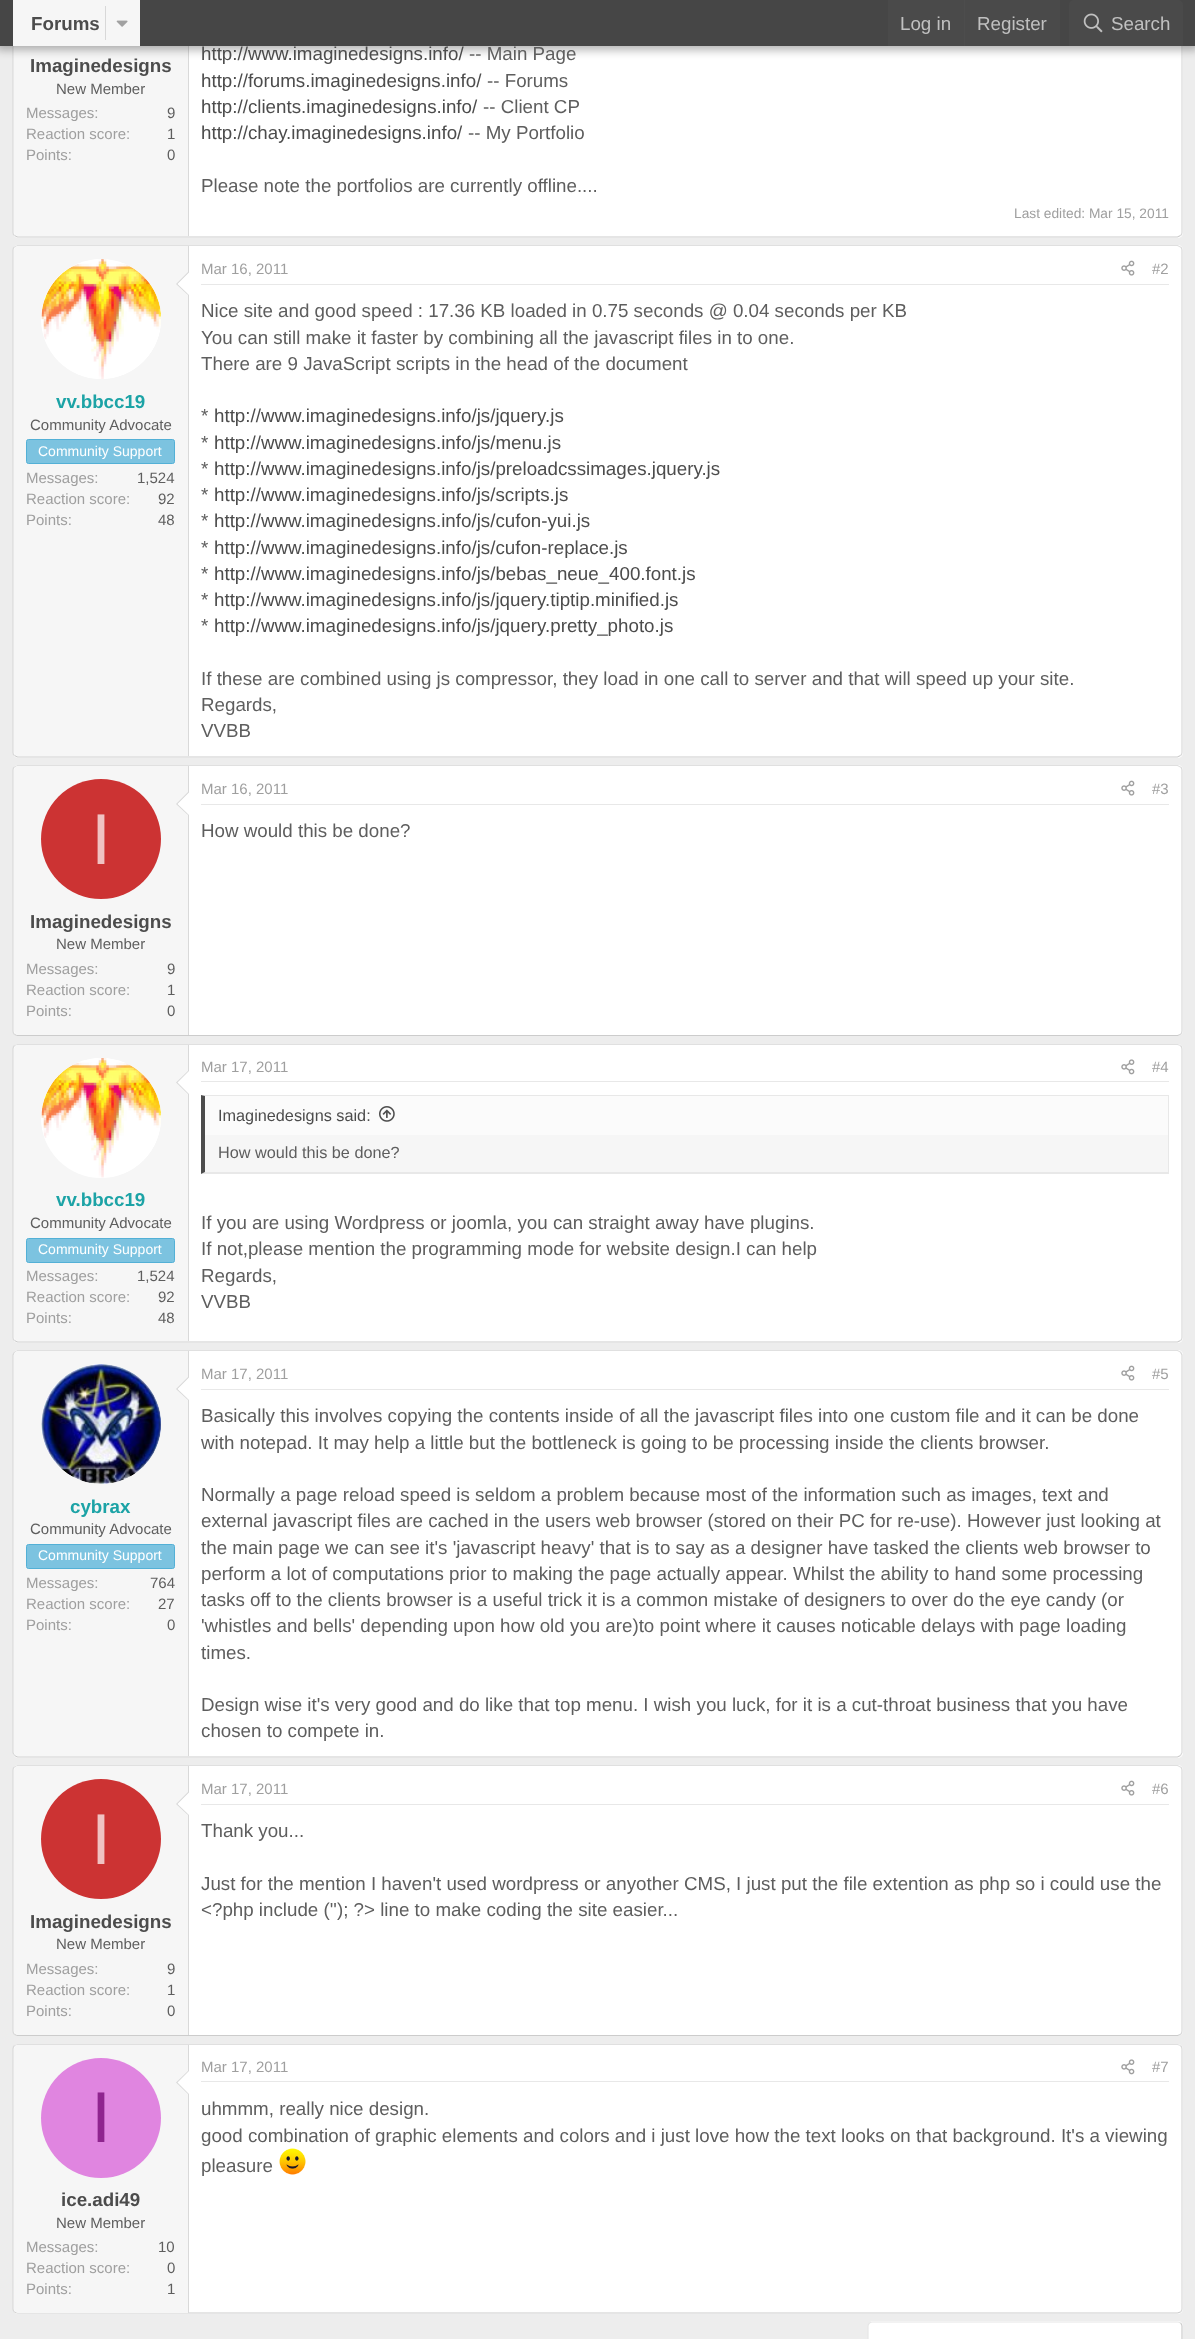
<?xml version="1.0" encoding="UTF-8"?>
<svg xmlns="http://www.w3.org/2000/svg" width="1195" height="2339">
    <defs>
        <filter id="blur1" x="-50%" y="-200%" width="200%" height="500%"><feGaussianBlur stdDeviation="5"/></filter>
    </defs>
    <rect width="100%" height="100%" fill="#EDEDED"/>
    <rect x="13" y="-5" width="1170" height="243" rx="5" fill="#FFFFFF"/>
    <path d="M 1180.5 -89.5 C 1181.5 -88.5 1182 -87.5 1182 -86 V 232.5 C 1182 233.5 1181.5 235 1180.5 235.5" fill="none" stroke="#D9D9D9" stroke-width="1.2"/>
    <path d="M 1180.5 235.5 L 1177.5 237 H 17.5 L 14.5 235.5" fill="none" stroke="#CCCCCC" stroke-width="1.2"/>
    <path d="M 14.5 235.5 C 13.5 235 13 233.5 13 232.5 V -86 C 13 -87.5 13.5 -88.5 14.5 -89.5" fill="none" stroke="#D9D9D9" stroke-width="1.2"/>
    <path d="M 18 -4 H 189 V 236 H 18 C 16 236 14 234 14 232 V 0 C 14 -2 16 -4 18 -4 Z" fill="#F6F6F6"/>
    <rect x="188" y="46" width="1" height="190" fill="#D9D9D9"/>
    <rect x="-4" y="-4" width="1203" height="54" fill="#000000" fill-opacity="0.3" filter="url(#blur1)"/>
    <rect x="0" y="0" width="1195" height="46" fill="#464646"/>
    <rect x="13" y="0" width="127" height="46" fill="#F6F6F6"/>
    <text x="31" y="30" font-family="Liberation Sans" font-size="18.75" font-weight="700" fill="#4C4C4C">Forums</text>
    <rect x="105" y="6" width="1" height="34" fill="#D8D8D8"/>
    <image x="116" y="20" width="12" height="7" href="img_01.png"/>
    <rect x="888" y="0" width="172" height="46" fill="#4A4A4A"/>
    <text x="900" y="30" font-family="Liberation Sans" font-size="18.75" fill="#C0C0C0">Log in</text>
    <rect x="964" y="0" width="1" height="46" fill="#4D4D4D"/>
    <text x="977" y="30" font-family="Liberation Sans" font-size="18.75" fill="#C0C0C0">Register</text>
    <path d="M 1074 0 H 1178 C 1181 0 1183 2 1183 5 V 46 H 1069 V 5 C 1069 2 1071 0 1074 0 Z" fill="#4A4A4A"/>
    <image x="1083" y="13" width="20" height="20" href="img_02.png"/>
    <text x="1111" y="30" font-family="Liberation Sans" font-size="18.75" fill="#C0C0C0">Search</text>
    <text x="30" y="72" font-family="Liberation Sans" font-size="18.75" font-weight="700" fill="#4C4C4C">Imaginedesigns</text>
    <text x="56" y="94" font-family="Liberation Sans" font-size="15" fill="#5E5E5E">New Member</text>
    <text x="26" y="118" font-family="Liberation Sans" font-size="15" fill="#9F9F9F">Messages:</text>
    <text x="167" y="118" font-family="Liberation Sans" font-size="15" fill="#5E5E5E">9</text>
    <text x="26" y="139" font-family="Liberation Sans" font-size="15" fill="#9F9F9F">Reaction score:</text>
    <text x="167" y="139" font-family="Liberation Sans" font-size="15" fill="#5E5E5E">1</text>
    <text x="26" y="160" font-family="Liberation Sans" font-size="15" fill="#9F9F9F">Points:</text>
    <text x="167" y="160" font-family="Liberation Sans" font-size="15" fill="#5E5E5E">0</text>
    <text x="201" y="60" font-family="Liberation Sans" font-size="18.75" fill="#4C4C4C">http://www.imaginedesigns.info/</text>
    <text x="469" y="60" font-family="Liberation Sans" font-size="18.75" fill="#5E5E5E">-- Main Page</text>
    <text x="201" y="87" font-family="Liberation Sans" font-size="18.75" fill="#4C4C4C">http://forums.imaginedesigns.info/</text>
    <text x="487" y="87" font-family="Liberation Sans" font-size="18.75" fill="#5E5E5E">-- Forums</text>
    <text x="201" y="113" font-family="Liberation Sans" font-size="18.75" fill="#4C4C4C">http://clients.imaginedesigns.info/</text>
    <text x="483" y="113" font-family="Liberation Sans" font-size="18.75" fill="#5E5E5E">-- Client CP</text>
    <text x="201" y="139" font-family="Liberation Sans" font-size="18.75" fill="#4C4C4C">http://chay.imaginedesigns.info/</text>
    <text x="468" y="139" font-family="Liberation Sans" font-size="18.75" fill="#5E5E5E">-- My Portfolio</text>
    <text x="201" y="192" font-family="Liberation Sans" font-size="18.75" fill="#5E5E5E">Please note the portfolios are currently offline....</text>
    <text x="1014" y="218" font-family="Liberation Sans" font-size="13.75" fill="#9F9F9F">Last edited: Mar 15, 2011</text>
    <rect x="13" y="245" width="1170" height="513" rx="5" fill="#FFFFFF"/>
    <path d="M 14.5 247 L 17.5 245.5 H 1177.5 L 1180.5 247" fill="none" stroke="#E0E0E0" stroke-width="1.2"/>
    <path d="M 1180.5 247 C 1181.5 247.5 1182 249 1182 250 V 752.5 C 1182 753.5 1181.5 755 1180.5 755.5" fill="none" stroke="#D9D9D9" stroke-width="1.2"/>
    <path d="M 1180.5 755.5 L 1177.5 757 H 17.5 L 14.5 755.5" fill="none" stroke="#CCCCCC" stroke-width="1.2"/>
    <path d="M 14.5 755.5 C 13.5 755 13 753.5 13 752.5 V 250 C 13 249 13.5 247.5 14.5 247" fill="none" stroke="#D9D9D9" stroke-width="1.2"/>
    <path d="M 18 246 H 189 V 756 H 18 C 16 756 14 754 14 752 V 250 C 14 248 16 246 18 246 Z" fill="#F6F6F6"/>
    <rect x="188" y="246" width="1" height="510" fill="#D9D9D9"/>
    <circle cx="101" cy="319" r="60" fill="#FFFFFF"/>
    <image x="41" y="259" width="120" height="120" href="img_03.png"/>
    <path d="M 189 271 V 296 L 176 284 Z" fill="#D9D9D9"/>
    <path d="M 189 272.5 V 295 L 177.5 284 Z" fill="#FFFFFF"/>
    <text x="56" y="408" font-family="Liberation Sans" font-size="18.75" font-weight="700" fill="#1CA3A6">vv.bbcc19</text>
    <text x="30" y="430" font-family="Liberation Sans" font-size="15" fill="#5E5E5E">Community Advocate</text>
    <rect x="26.5" y="439.5" width="148" height="24" rx="2" fill="#7CC3E0" stroke="#53B0D6"/>
    <text x="38" y="456" font-family="Liberation Sans" font-size="14" fill="#FFFFFF">Community Support</text>
    <text x="26" y="483" font-family="Liberation Sans" font-size="15" fill="#9F9F9F">Messages:</text>
    <text x="137" y="483" font-family="Liberation Sans" font-size="15" fill="#5E5E5E">1,524</text>
    <text x="26" y="504" font-family="Liberation Sans" font-size="15" fill="#9F9F9F">Reaction score:</text>
    <text x="158" y="504" font-family="Liberation Sans" font-size="15" fill="#5E5E5E">92</text>
    <text x="26" y="525" font-family="Liberation Sans" font-size="15" fill="#9F9F9F">Points:</text>
    <text x="158" y="525" font-family="Liberation Sans" font-size="15" fill="#5E5E5E">48</text>
    <rect x="201" y="284" width="968" height="1" fill="#E8E8E8"/>
    <text x="201" y="274" font-family="Liberation Sans" font-size="15" fill="#9F9F9F">Mar 16, 2011</text>
    <image x="1121" y="260" width="14" height="16" href="img_04.png"/>
    <text x="1152" y="274" font-family="Liberation Sans" font-size="15" fill="#9F9F9F">#2</text>
    <text font-family="Liberation Sans" font-size="18.75" fill="#5E5E5E">
        <tspan x="201" y="317">Nice site and good speed : 17.36 KB loaded in 0.75 seconds @ 0.04 seconds per KB</tspan>
        <tspan x="201" y="344">You can still make it faster by combining all the javascript files in to one.</tspan>
        <tspan x="201" y="370">There are 9 JavaScript scripts in the head of the document</tspan>
    </text>
    <text x="201" y="422" font-family="Liberation Sans" font-size="18.75" fill="#5E5E5E">*</text>
    <text x="214" y="422" font-family="Liberation Sans" font-size="18.75" fill="#4C4C4C">http://www.imaginedesigns.info/js/jquery.js</text>
    <text x="201" y="449" font-family="Liberation Sans" font-size="18.75" fill="#5E5E5E">*</text>
    <text x="214" y="449" font-family="Liberation Sans" font-size="18.75" fill="#4C4C4C">http://www.imaginedesigns.info/js/menu.js</text>
    <text x="201" y="475" font-family="Liberation Sans" font-size="18.75" fill="#5E5E5E">*</text>
    <text x="214" y="475" font-family="Liberation Sans" font-size="18.75" fill="#4C4C4C">http://www.imaginedesigns.info/js/preloadcssimages.jquery.js</text>
    <text x="201" y="501" font-family="Liberation Sans" font-size="18.75" fill="#5E5E5E">*</text>
    <text x="214" y="501" font-family="Liberation Sans" font-size="18.75" fill="#4C4C4C">http://www.imaginedesigns.info/js/scripts.js</text>
    <text x="201" y="527" font-family="Liberation Sans" font-size="18.75" fill="#5E5E5E">*</text>
    <text x="214" y="527" font-family="Liberation Sans" font-size="18.75" fill="#4C4C4C">http://www.imaginedesigns.info/js/cufon-yui.js</text>
    <text x="201" y="554" font-family="Liberation Sans" font-size="18.75" fill="#5E5E5E">*</text>
    <text x="214" y="554" font-family="Liberation Sans" font-size="18.75" fill="#4C4C4C">http://www.imaginedesigns.info/js/cufon-replace.js</text>
    <text x="201" y="580" font-family="Liberation Sans" font-size="18.75" fill="#5E5E5E">*</text>
    <text x="214" y="580" font-family="Liberation Sans" font-size="18.75" fill="#4C4C4C">http://www.imaginedesigns.info/js/bebas_neue_400.font.js</text>
    <text x="201" y="606" font-family="Liberation Sans" font-size="18.75" fill="#5E5E5E">*</text>
    <text x="214" y="606" font-family="Liberation Sans" font-size="18.75" fill="#4C4C4C">http://www.imaginedesigns.info/js/jquery.tiptip.minified.js</text>
    <text x="201" y="632" font-family="Liberation Sans" font-size="18.75" fill="#5E5E5E">*</text>
    <text x="214" y="632" font-family="Liberation Sans" font-size="18.75" fill="#4C4C4C">http://www.imaginedesigns.info/js/jquery.pretty_photo.js</text>
    <text font-family="Liberation Sans" font-size="18.75" fill="#5E5E5E">
        <tspan x="201" y="685">If these are combined using js compressor, they load in one call to server and that will speed up your site.</tspan>
        <tspan x="201" y="711">Regards,</tspan>
        <tspan x="201" y="737">VVBB</tspan>
    </text>
    <rect x="13" y="765" width="1170" height="271" rx="5" fill="#FFFFFF"/>
    <path d="M 14.5 767 L 17.5 765.5 H 1177.5 L 1180.5 767" fill="none" stroke="#E0E0E0" stroke-width="1.2"/>
    <path d="M 1180.5 767 C 1181.5 767.5 1182 769 1182 770 V 1031 C 1182 1032.5 1181.5 1033.5 1180.5 1034.5" fill="none" stroke="#D9D9D9" stroke-width="1.2"/>
    <path d="M 1180.5 1034.5 L 1177.5 1035.5 H 17.5 L 14.5 1034.5" fill="none" stroke="#CCCCCC" stroke-width="1.2"/>
    <path d="M 14.5 1034.5 C 13.5 1033.5 13 1032.5 13 1031 V 770 C 13 769 13.5 767.5 14.5 767" fill="none" stroke="#D9D9D9" stroke-width="1.2"/>
    <path d="M 18 766 H 189 V 1035 H 18 C 16 1035 14 1033 14 1031 V 770 C 14 768 16 766 18 766 Z" fill="#F6F6F6"/>
    <rect x="188" y="766" width="1" height="269" fill="#D9D9D9"/>
    <path d="M 189 791 V 816 L 176 804 Z" fill="#D9D9D9"/>
    <path d="M 189 792.5 V 815 L 177.5 804 Z" fill="#FFFFFF"/>
    <circle cx="101" cy="839" r="60" fill="#CC3333"/>
    <text x="91" y="864" font-family="Liberation Sans" font-size="72" fill="#F0C2C2">I</text>
    <text x="30" y="928" font-family="Liberation Sans" font-size="18.75" font-weight="700" fill="#4C4C4C">Imaginedesigns</text>
    <text x="56" y="949" font-family="Liberation Sans" font-size="15" fill="#5E5E5E">New Member</text>
    <text x="26" y="974" font-family="Liberation Sans" font-size="15" fill="#9F9F9F">Messages:</text>
    <text x="167" y="974" font-family="Liberation Sans" font-size="15" fill="#5E5E5E">9</text>
    <text x="26" y="995" font-family="Liberation Sans" font-size="15" fill="#9F9F9F">Reaction score:</text>
    <text x="167" y="995" font-family="Liberation Sans" font-size="15" fill="#5E5E5E">1</text>
    <text x="26" y="1016" font-family="Liberation Sans" font-size="15" fill="#9F9F9F">Points:</text>
    <text x="167" y="1016" font-family="Liberation Sans" font-size="15" fill="#5E5E5E">0</text>
    <rect x="201" y="804" width="968" height="1" fill="#E8E8E8"/>
    <text x="201" y="794" font-family="Liberation Sans" font-size="15" fill="#9F9F9F">Mar 16, 2011</text>
    <image x="1121" y="780" width="14" height="16" href="img_04.png"/>
    <text x="1152" y="794" font-family="Liberation Sans" font-size="15" fill="#9F9F9F">#3</text>
    <text x="201" y="837" font-family="Liberation Sans" font-size="18.75" fill="#5E5E5E">How would this be done?</text>
    <rect x="13" y="1044" width="1170" height="299" rx="5" fill="#FFFFFF"/>
    <path d="M 14.5 1045.5 L 17.5 1044.5 H 1177.5 L 1180.5 1045.5" fill="none" stroke="#E0E0E0" stroke-width="1.2"/>
    <path d="M 1180.5 1045.5 C 1181.5 1046.5 1182 1047.5 1182 1049 V 1337.5 C 1182 1338.5 1181.5 1340 1180.5 1340.5" fill="none" stroke="#D9D9D9" stroke-width="1.2"/>
    <path d="M 1180.5 1340.5 L 1177.5 1342 H 17.5 L 14.5 1340.5" fill="none" stroke="#CCCCCC" stroke-width="1.2"/>
    <path d="M 14.5 1340.5 C 13.5 1340 13 1338.5 13 1337.5 V 1049 C 13 1047.5 13.5 1046.5 14.5 1045.5" fill="none" stroke="#D9D9D9" stroke-width="1.2"/>
    <path d="M 18 1045 H 189 V 1341 H 18 C 16 1341 14 1339 14 1337 V 1049 C 14 1047 16 1045 18 1045 Z" fill="#F6F6F6"/>
    <rect x="188" y="1045" width="1" height="296" fill="#D9D9D9"/>
    <circle cx="101" cy="1118" r="60" fill="#FFFFFF"/>
    <image x="41" y="1058" width="120" height="120" href="img_05.png"/>
    <path d="M 189 1070 V 1095 L 176 1082.5 Z" fill="#D9D9D9"/>
    <path d="M 189 1071 V 1094 L 177.5 1082.5 Z" fill="#FFFFFF"/>
    <text x="56" y="1206" font-family="Liberation Sans" font-size="18.75" font-weight="700" fill="#1CA3A6">vv.bbcc19</text>
    <text x="30" y="1228" font-family="Liberation Sans" font-size="15" fill="#5E5E5E">Community Advocate</text>
    <rect x="26.5" y="1238.5" width="148" height="24" rx="2" fill="#7CC3E0" stroke="#53B0D6"/>
    <text x="38" y="1254" font-family="Liberation Sans" font-size="14" fill="#FFFFFF">Community Support</text>
    <text x="26" y="1281" font-family="Liberation Sans" font-size="15" fill="#9F9F9F">Messages:</text>
    <text x="137" y="1281" font-family="Liberation Sans" font-size="15" fill="#5E5E5E">1,524</text>
    <text x="26" y="1302" font-family="Liberation Sans" font-size="15" fill="#9F9F9F">Reaction score:</text>
    <text x="158" y="1302" font-family="Liberation Sans" font-size="15" fill="#5E5E5E">92</text>
    <text x="26" y="1323" font-family="Liberation Sans" font-size="15" fill="#9F9F9F">Points:</text>
    <text x="158" y="1323" font-family="Liberation Sans" font-size="15" fill="#5E5E5E">48</text>
    <rect x="201" y="1081" width="968" height="1" fill="#E8E8E8"/>
    <text x="201" y="1072" font-family="Liberation Sans" font-size="15" fill="#9F9F9F">Mar 17, 2011</text>
    <image x="1121" y="1059" width="14" height="16" href="img_06.png"/>
    <text x="1152" y="1072" font-family="Liberation Sans" font-size="15" fill="#9F9F9F">#4</text>
    <rect x="205" y="1135" width="963" height="37" fill="#F6F6F6"/>
    <path d="M 201 1095 H 1169 L 1168 1096 H 205 Z" fill="#E8E8E8"/>
    <rect x="1168" y="1095" width="1" height="79" fill="#E8E8E8"/>
    <path d="M 1169 1174 H 201 L 205 1172 H 1168 Z" fill="#E8E8E8"/>
    <path d="M 201 1174 V 1095 L 205 1096 V 1172 Z" fill="#4C4C4C"/>
    <rect x="205" y="1096" width="963" height="39" fill="#FBFBFB"/>
    <text x="218" y="1121" font-family="Liberation Sans" font-size="16.25" fill="#4C4C4C">Imaginedesigns said:</text>
    <image x="379" y="1106" width="16" height="16" href="img_07.png"/>
    <text x="218" y="1158" font-family="Liberation Sans" font-size="16.25" fill="#5E5E5E">How would this be done?</text>
    <text font-family="Liberation Sans" font-size="18.75" fill="#5E5E5E">
        <tspan x="201" y="1229">If you are using Wordpress or joomla, you can straight away have plugins.</tspan>
        <tspan x="201" y="1255">If not,please mention the programming mode for website design.I can help</tspan>
        <tspan x="201" y="1282">Regards,</tspan>
        <tspan x="201" y="1308">VVBB</tspan>
    </text>
    <rect x="13" y="1350" width="1170" height="408" rx="5" fill="#FFFFFF"/>
    <path d="M 14.5 1352 L 17.5 1350.5 H 1177.5 L 1180.5 1352" fill="none" stroke="#E0E0E0" stroke-width="1.2"/>
    <path d="M 1180.5 1352 L 1182 1355 V 1752.5 L 1180.5 1755.5" fill="none" stroke="#D9D9D9" stroke-width="1.2"/>
    <path d="M 1180.5 1755.5 L 1177.5 1757 H 17.5 L 14.5 1755.5" fill="none" stroke="#CCCCCC" stroke-width="1.2"/>
    <path d="M 14.5 1755.5 L 13 1752.5 V 1355 L 14.5 1352" fill="none" stroke="#D9D9D9" stroke-width="1.2"/>
    <path d="M 18 1351 H 189 V 1756 H 18 C 16 1756 14 1754 14 1752 V 1355 C 14 1353 16 1351 18 1351 Z" fill="#F6F6F6"/>
    <rect x="188" y="1351" width="1" height="405" fill="#D9D9D9"/>
    <circle cx="101" cy="1424" r="60" fill="#FFFFFF"/>
    <image x="41" y="1364" width="120" height="120" href="img_08.png"/>
    <path d="M 189 1376 V 1401 L 176 1389 Z" fill="#D9D9D9"/>
    <path d="M 189 1377.5 V 1400 L 177.5 1389 Z" fill="#FFFFFF"/>
    <text x="70" y="1513" font-family="Liberation Sans" font-size="18.75" font-weight="700" fill="#1CA3A6">cybrax</text>
    <text x="30" y="1534" font-family="Liberation Sans" font-size="15" fill="#5E5E5E">Community Advocate</text>
    <rect x="26.5" y="1544.5" width="148" height="24" rx="2" fill="#7CC3E0" stroke="#53B0D6"/>
    <text x="38" y="1560" font-family="Liberation Sans" font-size="14" fill="#FFFFFF">Community Support</text>
    <text x="26" y="1588" font-family="Liberation Sans" font-size="15" fill="#9F9F9F">Messages:</text>
    <text x="150" y="1588" font-family="Liberation Sans" font-size="15" fill="#5E5E5E">764</text>
    <text x="26" y="1609" font-family="Liberation Sans" font-size="15" fill="#9F9F9F">Reaction score:</text>
    <text x="158" y="1609" font-family="Liberation Sans" font-size="15" fill="#5E5E5E">27</text>
    <text x="26" y="1630" font-family="Liberation Sans" font-size="15" fill="#9F9F9F">Points:</text>
    <text x="167" y="1630" font-family="Liberation Sans" font-size="15" fill="#5E5E5E">0</text>
    <rect x="201" y="1389" width="968" height="1" fill="#E8E8E8"/>
    <text x="201" y="1379" font-family="Liberation Sans" font-size="15" fill="#9F9F9F">Mar 17, 2011</text>
    <image x="1121" y="1365" width="14" height="16" href="img_04.png"/>
    <text x="1152" y="1379" font-family="Liberation Sans" font-size="15" fill="#9F9F9F">#5</text>
    <text font-family="Liberation Sans" font-size="18.75" fill="#5E5E5E">
        <tspan x="201" y="1422">Basically this involves copying the contents inside of all the javascript files into one custom file and it can be done</tspan>
        <tspan x="201" y="1449">with notepad. It may help a little but the bottleneck is going to be processing inside the clients browser.</tspan>
    </text>
    <text font-family="Liberation Sans" font-size="18.75" fill="#5E5E5E">
        <tspan x="201" y="1501">Normally a page reload speed is seldom a problem because most of the information such as images, text and</tspan>
        <tspan x="201" y="1527">external javascript files are cached in the users web browser (stored on their PC for re-use). However just looking at</tspan>
        <tspan x="201" y="1554">the main page we can see it's 'javascript heavy' that is to say as a designer have tasked the clients web browser to</tspan>
        <tspan x="201" y="1580">perform a lot of computations prior to making the page actually appear. Whilst the ability to hand some processing</tspan>
        <tspan x="201" y="1606">tasks off to the clients browser is a useful trick it is a common mistake of designers to over do the eye candy (or</tspan>
        <tspan x="201" y="1632">'whistles and bells' depending upon how old you are)to point where it causes noticable delays with page loading</tspan>
        <tspan x="201" y="1659">times.</tspan>
    </text>
    <text font-family="Liberation Sans" font-size="18.75" fill="#5E5E5E">
        <tspan x="201" y="1711">Design wise it's very good and do like that top menu. I wish you luck, for it is a cut-throat business that you have</tspan>
        <tspan x="201" y="1737">chosen to compete in.</tspan>
    </text>
    <rect x="13" y="1765" width="1170" height="271" rx="5" fill="#FFFFFF"/>
    <path d="M 14.5 1767 L 17.5 1765.5 H 1177.5 L 1180.5 1767" fill="none" stroke="#E0E0E0" stroke-width="1.2"/>
    <path d="M 1180.5 1767 C 1181.5 1767.5 1182 1769 1182 1770 V 2031 C 1182 2032.5 1181.5 2033.5 1180.5 2034.5" fill="none" stroke="#D9D9D9" stroke-width="1.2"/>
    <path d="M 1180.5 2034.5 L 1177.5 2035.5 H 17.5 L 14.5 2034.5" fill="none" stroke="#CCCCCC" stroke-width="1.2"/>
    <path d="M 14.5 2034.5 C 13.5 2033.5 13 2032.5 13 2031 V 1770 C 13 1769 13.5 1767.5 14.5 1767" fill="none" stroke="#D9D9D9" stroke-width="1.2"/>
    <path d="M 18 1766 H 189 V 2035 H 18 C 16 2035 14 2033 14 2031 V 1770 C 14 1768 16 1766 18 1766 Z" fill="#F6F6F6"/>
    <rect x="188" y="1766" width="1" height="269" fill="#D9D9D9"/>
    <path d="M 189 1791 V 1816 L 176 1804 Z" fill="#D9D9D9"/>
    <path d="M 189 1792.5 V 1815 L 177.5 1804 Z" fill="#FFFFFF"/>
    <circle cx="101" cy="1839" r="60" fill="#CC3333"/>
    <text x="91" y="1864" font-family="Liberation Sans" font-size="72" fill="#F0C2C2">I</text>
    <text x="30" y="1928" font-family="Liberation Sans" font-size="18.75" font-weight="700" fill="#4C4C4C">Imaginedesigns</text>
    <text x="56" y="1949" font-family="Liberation Sans" font-size="15" fill="#5E5E5E">New Member</text>
    <text x="26" y="1974" font-family="Liberation Sans" font-size="15" fill="#9F9F9F">Messages:</text>
    <text x="167" y="1974" font-family="Liberation Sans" font-size="15" fill="#5E5E5E">9</text>
    <text x="26" y="1995" font-family="Liberation Sans" font-size="15" fill="#9F9F9F">Reaction score:</text>
    <text x="167" y="1995" font-family="Liberation Sans" font-size="15" fill="#5E5E5E">1</text>
    <text x="26" y="2016" font-family="Liberation Sans" font-size="15" fill="#9F9F9F">Points:</text>
    <text x="167" y="2016" font-family="Liberation Sans" font-size="15" fill="#5E5E5E">0</text>
    <rect x="201" y="1804" width="968" height="1" fill="#E8E8E8"/>
    <text x="201" y="1794" font-family="Liberation Sans" font-size="15" fill="#9F9F9F">Mar 17, 2011</text>
    <image x="1121" y="1780" width="14" height="16" href="img_04.png"/>
    <text x="1152" y="1794" font-family="Liberation Sans" font-size="15" fill="#9F9F9F">#6</text>
    <text x="201" y="1837" font-family="Liberation Sans" font-size="18.75" fill="#5E5E5E">Thank you...</text>
    <text font-family="Liberation Sans" font-size="18.75" fill="#5E5E5E">
        <tspan x="201" y="1890">Just for the mention I haven't used wordpress or anyother CMS, I just put the file extention as php so i could use the</tspan>
        <tspan x="201" y="1916">&lt;?php include (''); ?&gt; line to make coding the site easier...</tspan>
    </text>
    <rect x="13" y="2044" width="1170" height="270" rx="5" fill="#FFFFFF"/>
    <path d="M 14.5 2045.5 L 17.5 2044.5 H 1177.5 L 1180.5 2045.5" fill="none" stroke="#E0E0E0" stroke-width="1.2"/>
    <path d="M 1180.5 2045.5 C 1181.5 2046.5 1182 2047.5 1182 2049 V 2309 C 1182 2310 1181.5 2311 1180.5 2312" fill="none" stroke="#D9D9D9" stroke-width="1.2"/>
    <path d="M 1180.5 2312 L 1177.5 2313 H 17.5 L 14.5 2312" fill="none" stroke="#CCCCCC" stroke-width="1.2"/>
    <path d="M 14.5 2312 C 13.5 2311 13 2310 13 2309 V 2049 C 13 2047.5 13.5 2046.5 14.5 2045.5" fill="none" stroke="#D9D9D9" stroke-width="1.2"/>
    <path d="M 18 2045 H 189 V 2313 H 18 C 16 2313 14 2311 14 2309 V 2049 C 14 2047 16 2045 18 2045 Z" fill="#F6F6F6"/>
    <rect x="188" y="2045" width="1" height="268" fill="#D9D9D9"/>
    <path d="M 189 2070 V 2095 L 176 2082.5 Z" fill="#D9D9D9"/>
    <path d="M 189 2071 V 2094 L 177.5 2082.5 Z" fill="#FFFFFF"/>
    <circle cx="101" cy="2118" r="60" fill="#E085E0"/>
    <text x="91" y="2142" font-family="Liberation Sans" font-size="72" fill="#8F248F">I</text>
    <text x="61" y="2206" font-family="Liberation Sans" font-size="18.75" font-weight="700" fill="#4C4C4C">ice.adi49</text>
    <text x="56" y="2228" font-family="Liberation Sans" font-size="15" fill="#5E5E5E">New Member</text>
    <text x="26" y="2252" font-family="Liberation Sans" font-size="15" fill="#9F9F9F">Messages:</text>
    <text x="158" y="2252" font-family="Liberation Sans" font-size="15" fill="#5E5E5E">10</text>
    <text x="26" y="2273" font-family="Liberation Sans" font-size="15" fill="#9F9F9F">Reaction score:</text>
    <text x="167" y="2273" font-family="Liberation Sans" font-size="15" fill="#5E5E5E">0</text>
    <text x="26" y="2294" font-family="Liberation Sans" font-size="15" fill="#9F9F9F">Points:</text>
    <text x="167" y="2294" font-family="Liberation Sans" font-size="15" fill="#5E5E5E">1</text>
    <rect x="201" y="2081" width="968" height="1" fill="#E8E8E8"/>
    <text x="201" y="2072" font-family="Liberation Sans" font-size="15" fill="#9F9F9F">Mar 17, 2011</text>
    <image x="1121" y="2059" width="14" height="16" href="img_06.png"/>
    <text x="1152" y="2072" font-family="Liberation Sans" font-size="15" fill="#9F9F9F">#7</text>
    <text font-family="Liberation Sans" font-size="18.75" fill="#5E5E5E">
        <tspan x="201" y="2115">uhmmm, really nice design.</tspan>
        <tspan x="201" y="2142">good combination of graphic elements and colors and i just love how the text looks on that background. It's a viewing</tspan>
        <tspan x="201" y="2172">pleasure</tspan>
    </text>
    <image x="279" y="2148" width="27" height="27" href="img_09.png"/>
    <rect x="868" y="2321" width="315" height="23" rx="5" fill="#FFFFFF"/>
    <path d="M 1180.5 2323 C 1181.5 2324 1182 2325 1182 2326 V 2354 C 1182 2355 1181.5 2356 1180.5 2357 C 1180 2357.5 1178.5 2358 1177.5 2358 H 872.5 C 871.5 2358 870 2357.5 869.5 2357" fill="none" stroke="#CCCCCC" stroke-width="1.2"/>
    <path d="M 869.5 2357 C 868.5 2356 868 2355 868 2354 V 2326 C 868 2325 868.5 2324 869.5 2323 C 870 2322.5 871.5 2322 872.5 2322 H 1177.5 C 1178.5 2322 1180 2322.5 1180.5 2323" fill="none" stroke="#E6E6E6" stroke-width="1.2"/>
</svg>
